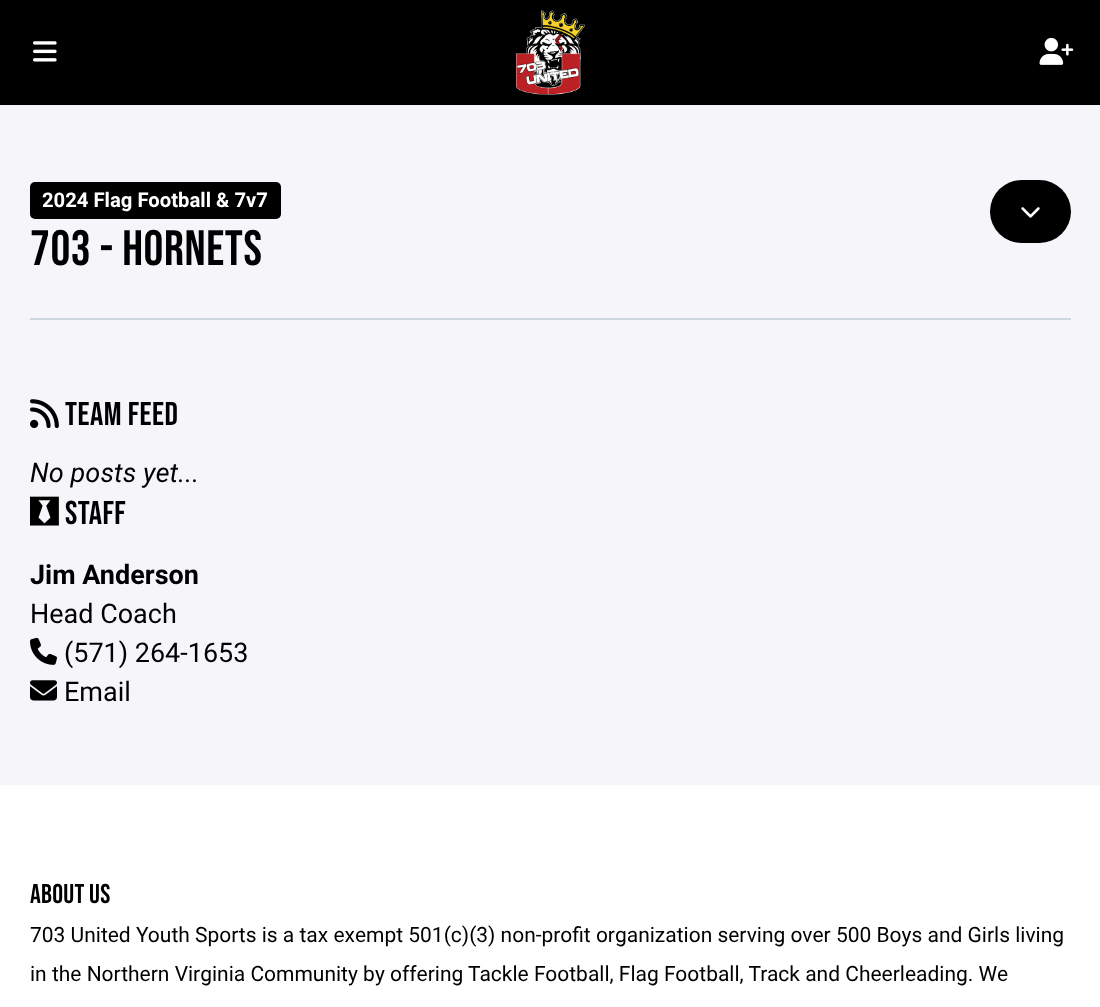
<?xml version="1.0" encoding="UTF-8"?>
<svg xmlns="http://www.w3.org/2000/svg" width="1100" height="1007">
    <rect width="100%" height="100%" fill="#F6F5FA"/>
    <rect x="0" y="0" width="1100" height="105" fill="#000000"/>
    <image x="33" y="41" width="24" height="21" href="img_01.png"/>
    <image x="516" y="10" width="69" height="85" href="img_02.png"/>
    <image x="1039" y="37" width="35" height="28" href="img_03.png"/>
    <rect x="30" y="182" width="251" height="37" rx="5" fill="#000000"/>
    <text x="42" y="207" font-family="Roboto" font-size="20.25" font-weight="700" fill="#FFFFFF">2024 Flag Football &amp; 7v7</text>
    <text x="30" y="265" font-family="Bebas Neue" font-size="49.5" letter-spacing="0.6" fill="#000000">703 - HORNETS</text>
    <rect x="990" y="180" width="81" height="63" rx="31.5" fill="#000000"/>
    <image x="1021" y="207" width="19" height="11" href="img_04.png"/>
    <rect x="30" y="318" width="1041" height="2" fill="#CED7E0"/>
    <image x="30" y="399" width="29" height="30" href="img_05.png"/>
    <text x="65" y="425" font-family="Bebas Neue" font-size="33" letter-spacing="0.5" fill="#000000">TEAM FEED</text>
    <text x="30" y="482" font-family="Roboto" font-size="27" font-style="italic" fill="#000000">No posts yet...</text>
    <image x="30" y="496" width="29" height="30" href="img_06.png"/>
    <text x="65" y="524" font-family="Bebas Neue" font-size="33" letter-spacing="0.5" fill="#000000">STAFF</text>
    <text x="30" y="584" font-family="Roboto" font-size="27" font-weight="700" fill="#000000">Jim Anderson</text>
    <text x="30" y="623" font-family="Roboto" font-size="27" fill="#000000">Head Coach</text>
    <image x="30" y="637" width="27" height="28" href="img_07.png"/>
    <text x="64" y="662" font-family="Roboto" font-size="27" fill="#000000">(571) 264-1653</text>
    <image x="30" y="680" width="27" height="21" href="img_08.png"/>
    <text x="64" y="701" font-family="Roboto" font-size="27" fill="#000000">Email</text>
    <rect x="0" y="785" width="1100" height="222" fill="#FFFFFF"/>
    <text x="30" y="903" font-family="Bebas Neue" font-size="27" letter-spacing="0.25" fill="#000000">ABOUT US</text>
    <text font-family="Roboto" font-size="21" fill="#000000">
        <tspan x="30" y="942">703 United Youth Sports is a tax exempt 501(c)(3) non-profit organization serving over 500 Boys and Girls living</tspan>
        <tspan x="30" y="981">in the Northern Virginia Community by offering Tackle Football, Flag Football, Track and Cheerleading. We</tspan>
    </text>
</svg>
